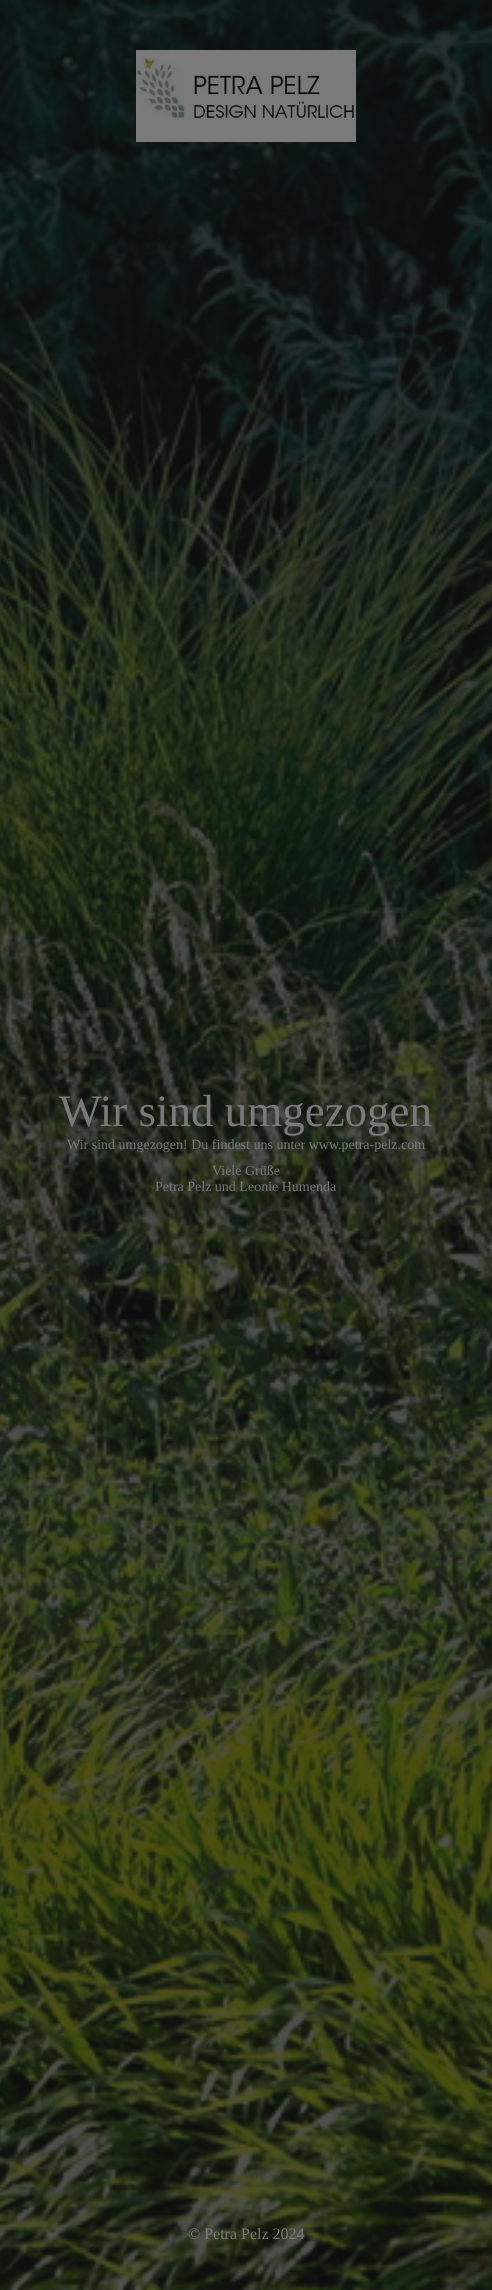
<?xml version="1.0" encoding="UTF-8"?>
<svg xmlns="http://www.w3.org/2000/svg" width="492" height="2290">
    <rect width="100%" height="100%" fill="#FFFFFF"/>
    <image x="0" y="0" width="492" height="2290" href="img_01.png"/>
    <image x="136" y="50" width="220" height="92" href="img_02.png"/>
    <text x="59" y="1126" font-family="Liberation Serif" font-size="45" fill="#7A7A7A">Wir sind umgezogen</text>
    <text x="67" y="1149" font-family="Liberation Serif" font-size="14" fill="#7A7A7A">Wir sind umgezogen! Du findest uns unter www.petra-pelz.com</text>
    <text x="212" y="1175" font-family="Liberation Serif" font-size="14" fill="#7A7A7A">Viele Grüße</text>
    <text x="155" y="1191" font-family="Liberation Serif" font-size="14" fill="#7A7A7A">Petra Pelz und Leonie Humenda</text>
    <text x="188" y="2239" font-family="Liberation Serif" font-size="16" fill="#7A7A7A">© Petra Pelz 2024</text>
</svg>
